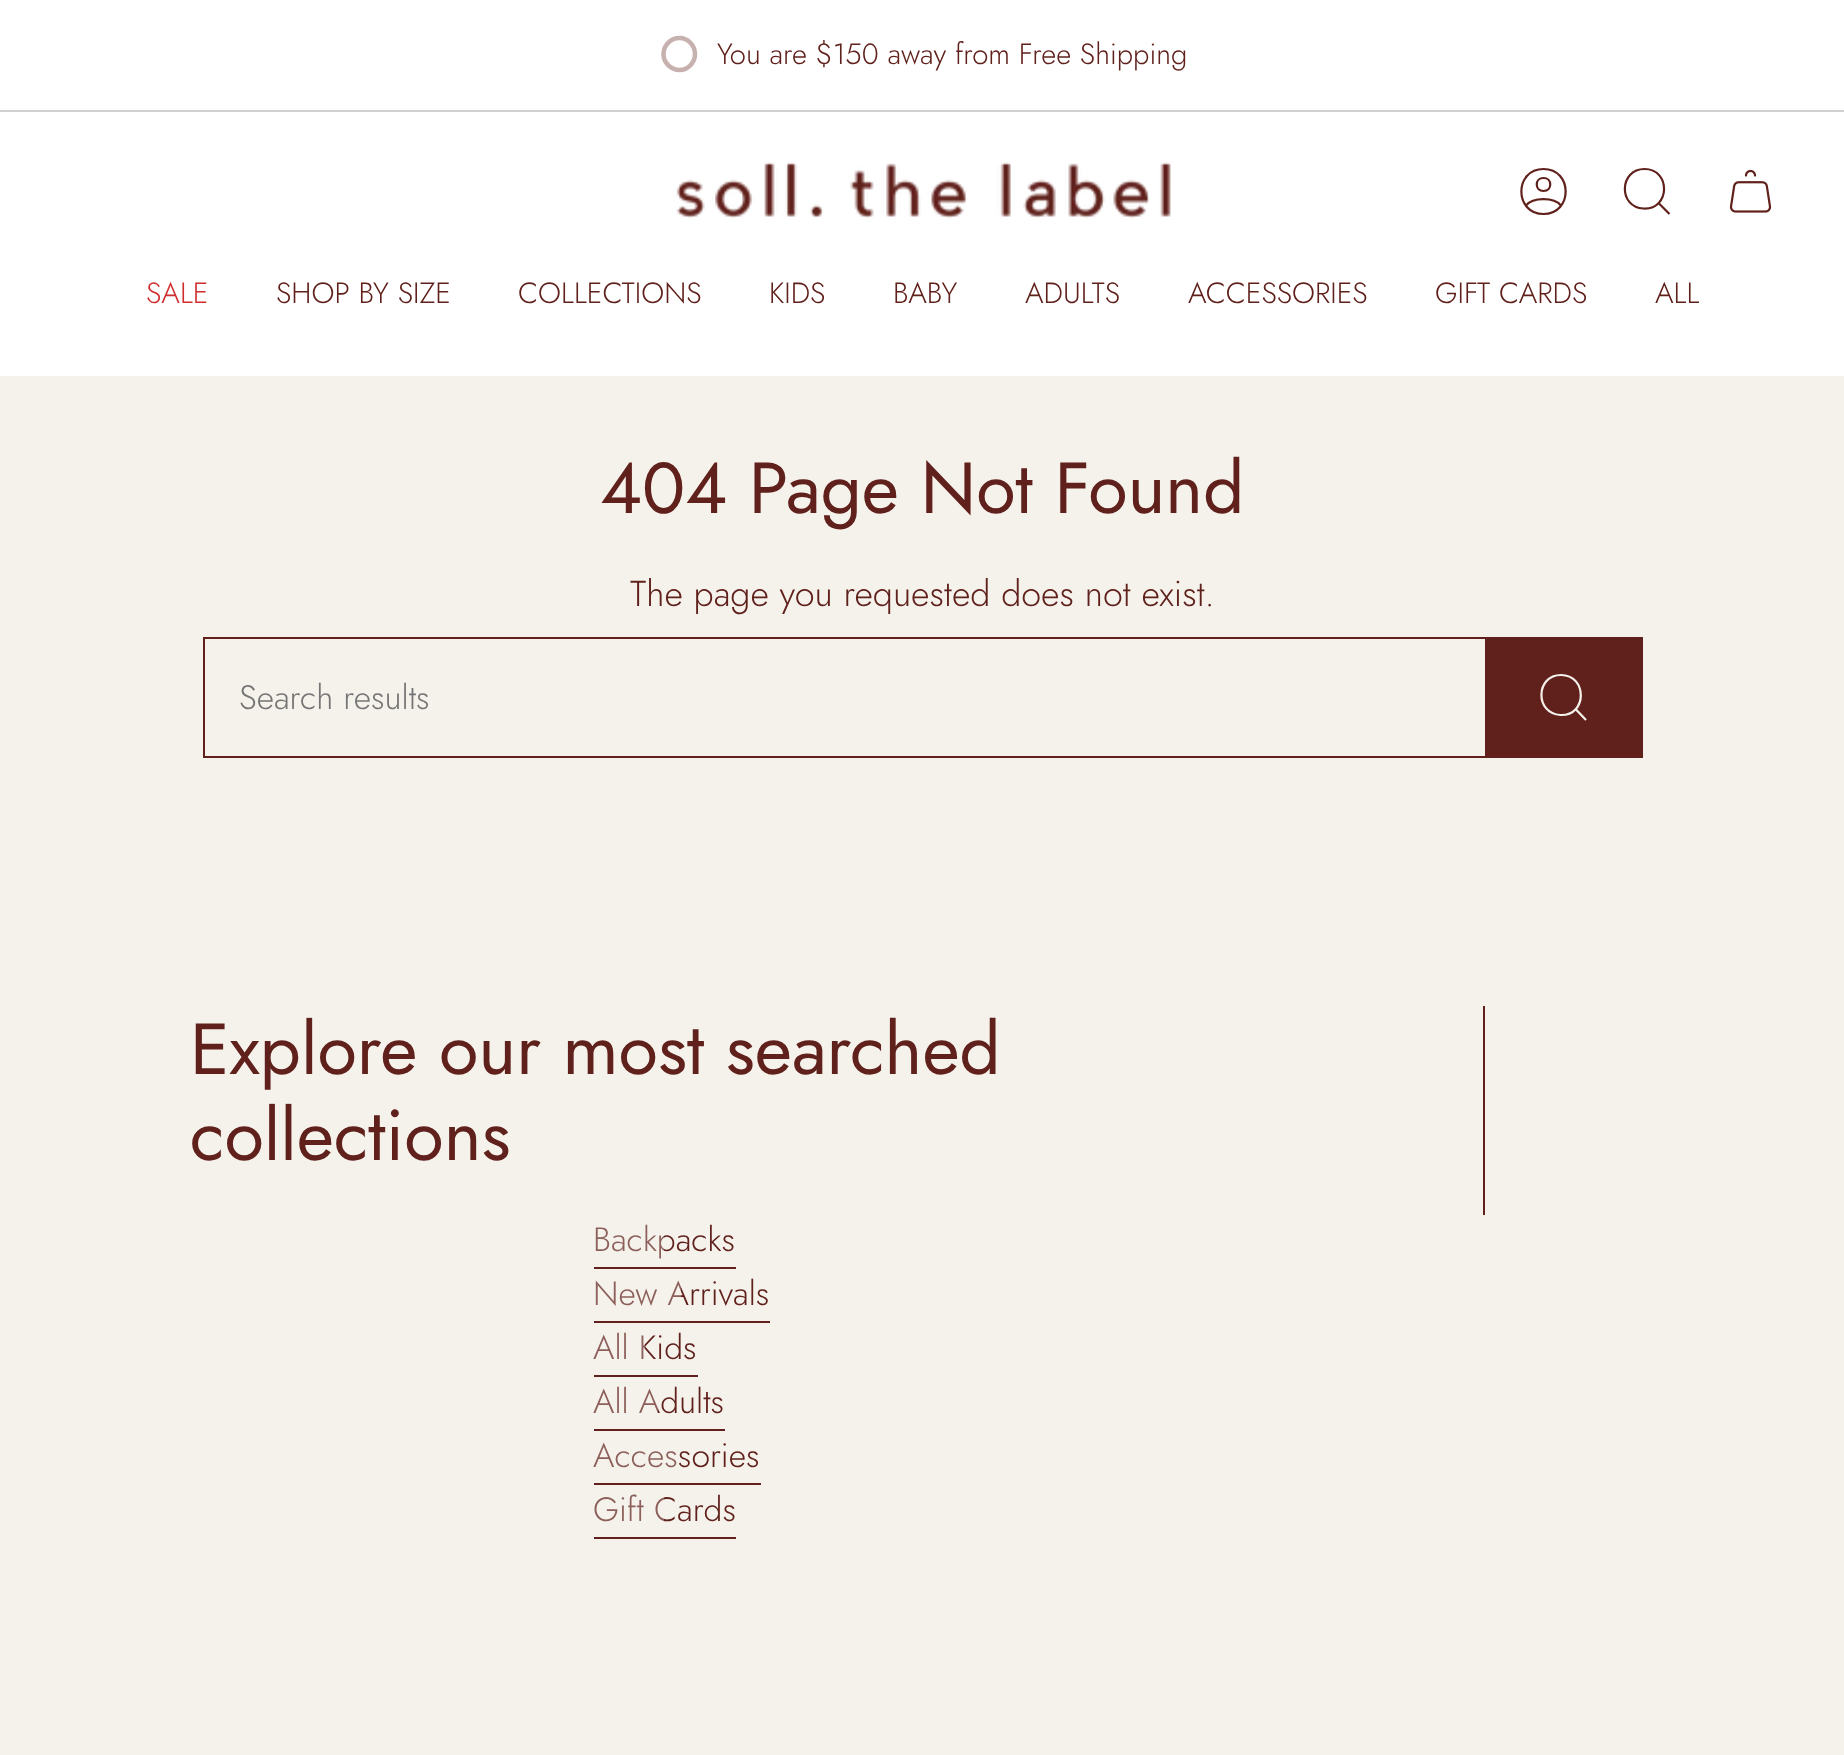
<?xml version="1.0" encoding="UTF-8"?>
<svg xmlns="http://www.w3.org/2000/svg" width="1844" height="1755">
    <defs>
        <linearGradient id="g1" gradientUnits="userSpaceOnUse" x1="593" y1="1242" x2="735" y2="1242"><stop offset="0" stop-color="#8D5F5A"/><stop offset="0.5" stop-color="#8D5F5A"/><stop offset="0.5" stop-color="#60201B"/><stop offset="1" stop-color="#60201B"/></linearGradient>
        <linearGradient id="g2" gradientUnits="userSpaceOnUse" x1="593" y1="1296" x2="769" y2="1296"><stop offset="0" stop-color="#8D5F5A"/><stop offset="0.5" stop-color="#8D5F5A"/><stop offset="0.5" stop-color="#60201B"/><stop offset="1" stop-color="#60201B"/></linearGradient>
        <linearGradient id="g3" gradientUnits="userSpaceOnUse" x1="593" y1="1350" x2="697" y2="1350"><stop offset="0" stop-color="#8D5F5A"/><stop offset="0.5" stop-color="#8D5F5A"/><stop offset="0.5" stop-color="#60201B"/><stop offset="1" stop-color="#60201B"/></linearGradient>
        <linearGradient id="g4" gradientUnits="userSpaceOnUse" x1="593" y1="1404" x2="724" y2="1404"><stop offset="0" stop-color="#8D5F5A"/><stop offset="0.5" stop-color="#8D5F5A"/><stop offset="0.5" stop-color="#60201B"/><stop offset="1" stop-color="#60201B"/></linearGradient>
        <linearGradient id="g5" gradientUnits="userSpaceOnUse" x1="593" y1="1458" x2="759" y2="1458"><stop offset="0" stop-color="#8D5F5A"/><stop offset="0.5" stop-color="#8D5F5A"/><stop offset="0.5" stop-color="#60201B"/><stop offset="1" stop-color="#60201B"/></linearGradient>
        <linearGradient id="g6" gradientUnits="userSpaceOnUse" x1="593" y1="1512" x2="736" y2="1512"><stop offset="0" stop-color="#8D5F5A"/><stop offset="0.5" stop-color="#8D5F5A"/><stop offset="0.5" stop-color="#60201B"/><stop offset="1" stop-color="#60201B"/></linearGradient>
    </defs>
    <rect width="100%" height="100%" fill="#F5F2EC"/>
    <rect x="0" y="0" width="1844" height="376" fill="#FFFFFF"/>
    <rect x="0" y="110" width="1844" height="2" fill="#D1D0CE"/>
    <path d="M 679.5 38 C 670.5 38 663.5 45.5 663.5 54 C 663.5 62.5 670.5 70 679.5 70 C 688 70 695 62.5 695 54 C 695 45.5 688 38 679.5 38 Z" fill="none" stroke="#C7B1AF" stroke-width="4.5"/>
    <text x="717" y="64" font-family="Jost" font-size="29.25" font-weight="300" fill="#60201B">You are $150 away from Free Shipping</text>
    <image x="676" y="162" width="495" height="57" href="img_01.png"/>
    <path d="M 1543.5 169 C 1514 169 1514 214 1543.5 214 C 1573 214 1573 169 1543.5 169 Z M 1526 205.5 C 1533 197 1554 197 1561 205.5 M 1543.5 191 C 1552.5 191 1552.5 178 1543.5 178 C 1534.5 178 1534.5 191 1543.5 191 Z" fill="none" stroke="#60201B" stroke-width="2.2" stroke-linecap="round" stroke-linejoin="round"/>
    <path d="M 1644.5 169 C 1671 169 1670.5 210 1643.5 208.5 C 1618 207.5 1619 169 1644.5 169 Z M 1658.5 203 L 1669.5 214" fill="none" stroke="#60201B" stroke-width="2.2"/>
    <image x="1729" y="169" width="43" height="44" href="img_02.png"/>
    <text x="146" y="303" font-family="Jost" font-size="29.25" font-weight="300" fill="#D02E2E">SALE</text>
    <text x="276" y="303" font-family="Jost" font-size="29.25" font-weight="300" fill="#60201B">SHOP BY SIZE</text>
    <text x="518" y="303" font-family="Jost" font-size="29.25" font-weight="300" fill="#60201B">COLLECTIONS</text>
    <text x="769" y="303" font-family="Jost" font-size="29.25" font-weight="300" fill="#60201B">KIDS</text>
    <text x="893" y="303" font-family="Jost" font-size="29.25" font-weight="300" fill="#60201B">BABY</text>
    <text x="1025" y="303" font-family="Jost" font-size="29.25" font-weight="300" fill="#60201B">ADULTS</text>
    <text x="1188" y="303" font-family="Jost" font-size="29.25" font-weight="300" fill="#60201B">ACCESSORIES</text>
    <text x="1435" y="303" font-family="Jost" font-size="29.25" font-weight="300" fill="#60201B">GIFT CARDS</text>
    <text x="1655" y="303" font-family="Jost" font-size="29.25" font-weight="300" fill="#60201B">ALL</text>
    <text x="600" y="513" font-family="Jost" font-size="72" fill="#60201B">404 Page Not Found</text>
    <text x="630" y="606" font-family="Jost" font-size="36" font-weight="300" fill="#60201B">The page you requested does not exist.</text>
    <rect x="204" y="638" width="1282" height="119" fill="none" stroke="#60201B" stroke-width="2"/>
    <text x="239" y="709" font-family="Jost" font-size="33.75" font-weight="300" fill="#757575">Search results</text>
    <rect x="1487" y="637" width="156" height="121" fill="#60201B"/>
    <path d="M 1561 675 C 1587.5 675 1587.5 716 1560.5 715 C 1534.5 713.5 1535.5 675 1561 675 Z M 1575.5 709 L 1586 720" fill="none" stroke="#F5F2EC" stroke-width="2.2"/>
    <text font-family="Jost" font-size="72" fill="#60201B">
        <tspan x="190" y="1074">Explore our most searched</tspan>
        <tspan x="190" y="1160">collections</tspan>
    </text>
    <rect x="1483" y="1006" width="2" height="209" fill="#60201B"/>
    <text x="593" y="1251" font-family="Jost" font-size="33.75" font-weight="300" fill="url(#g1)">Backpacks</text>
    <rect x="594" y="1267" width="142" height="2" fill="#60201B"/>
    <text x="593" y="1305" font-family="Jost" font-size="33.75" font-weight="300" fill="url(#g2)">New Arrivals</text>
    <rect x="594" y="1321" width="176" height="2" fill="#60201B"/>
    <text x="593" y="1359" font-family="Jost" font-size="33.75" font-weight="300" fill="url(#g3)">All Kids</text>
    <rect x="594" y="1375" width="104" height="2" fill="#60201B"/>
    <text x="593" y="1413" font-family="Jost" font-size="33.75" font-weight="300" fill="url(#g4)">All Adults</text>
    <rect x="594" y="1429" width="131" height="2" fill="#60201B"/>
    <text x="593" y="1467" font-family="Jost" font-size="33.75" font-weight="300" fill="url(#g5)">Accessories</text>
    <rect x="594" y="1483" width="167" height="2" fill="#60201B"/>
    <text x="593" y="1521" font-family="Jost" font-size="33.75" font-weight="300" fill="url(#g6)">Gift Cards</text>
    <rect x="594" y="1537" width="142" height="2" fill="#60201B"/>
</svg>
